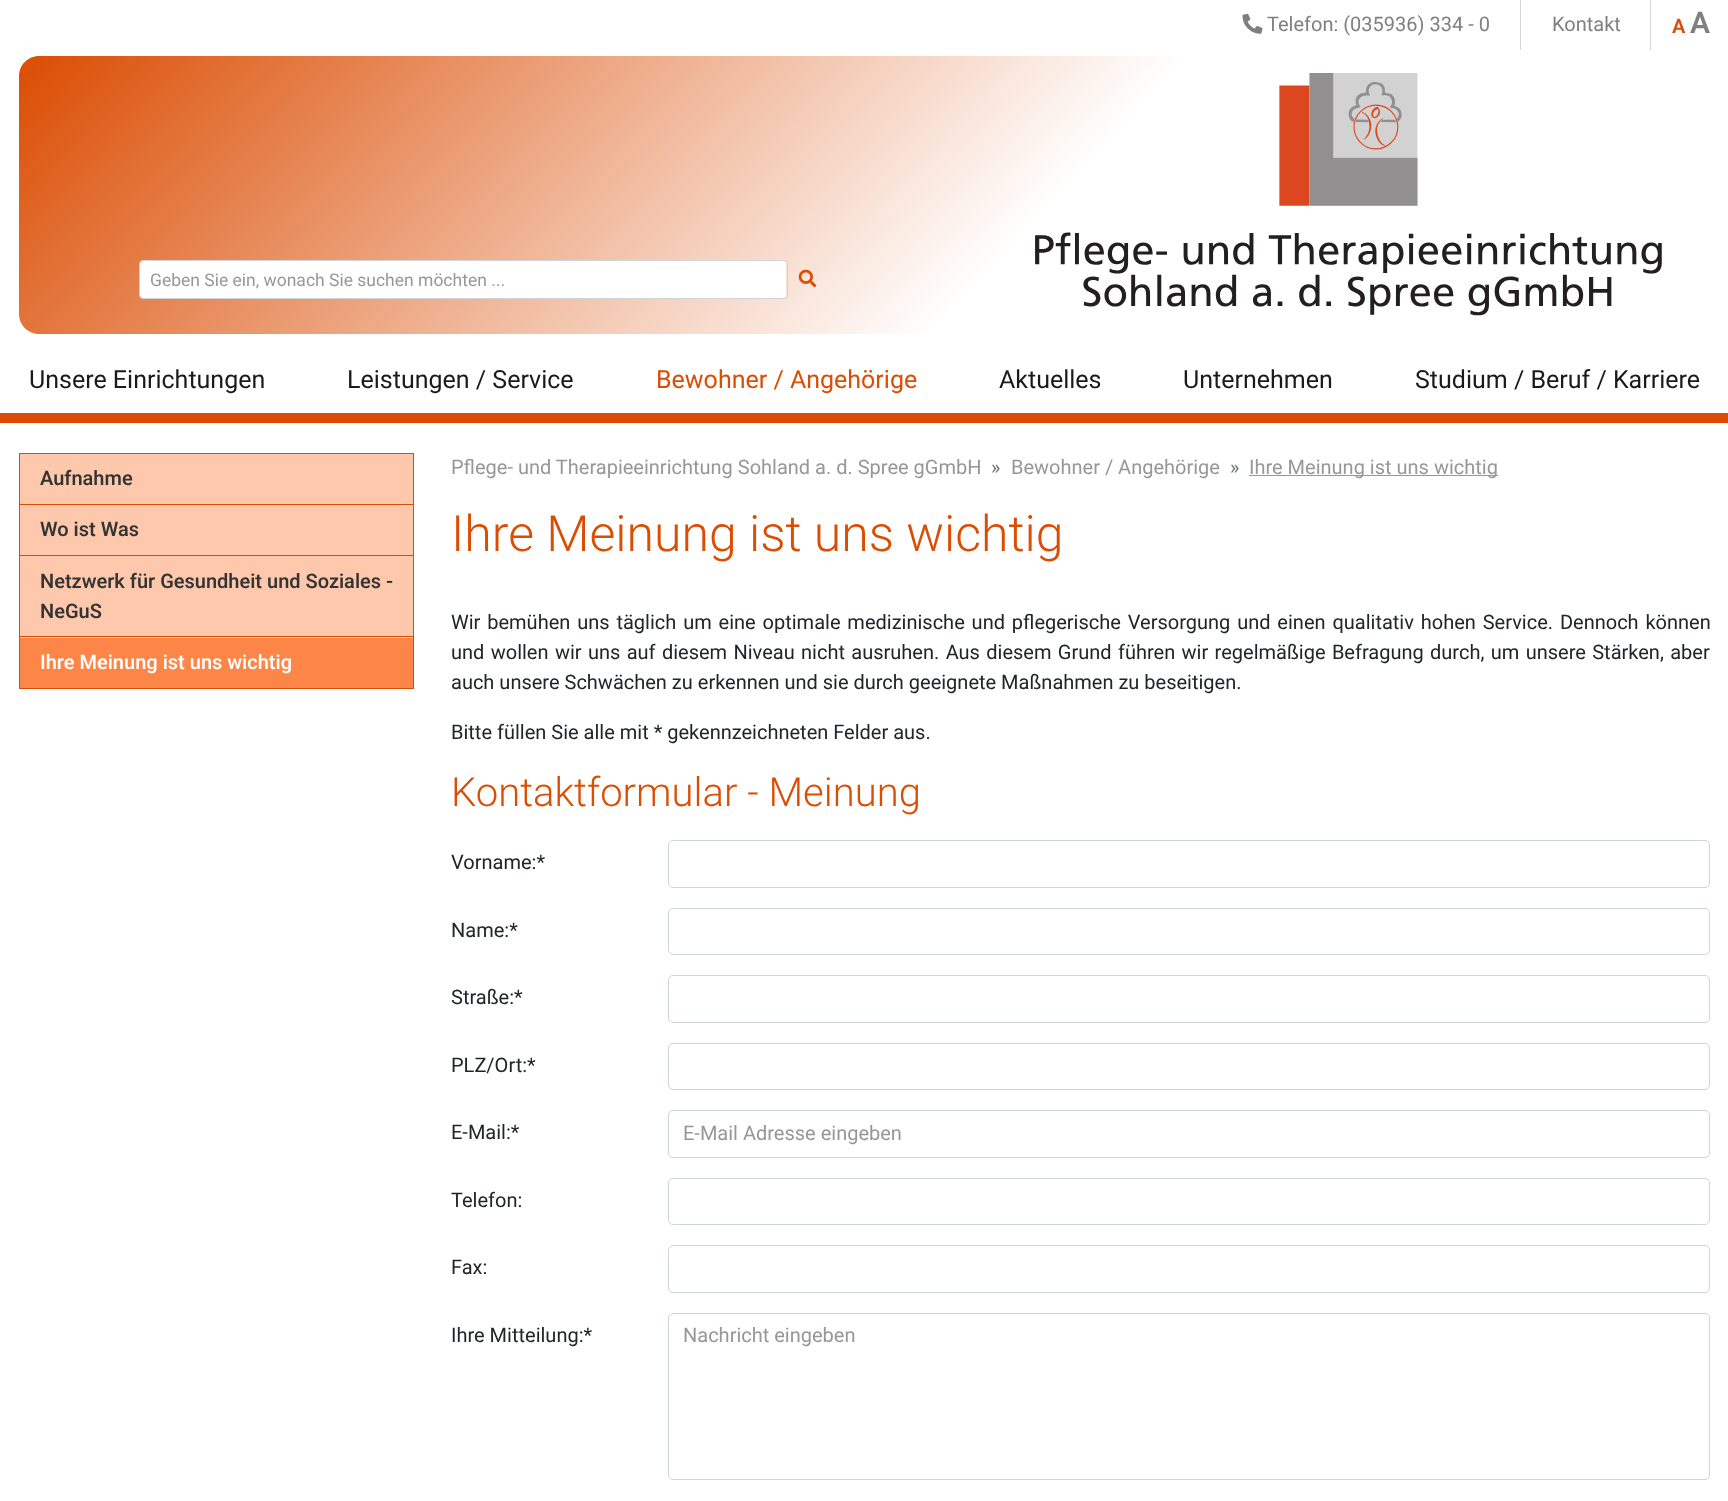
<?xml version="1.0" encoding="UTF-8"?>
<svg xmlns="http://www.w3.org/2000/svg" width="1728" height="1501">
    <defs>
        <linearGradient id="g1" gradientUnits="userSpaceOnUse" x1="343" y1="-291" x2="1386" y2="681"><stop offset="0" stop-color="#DB4D03"/><stop offset="0.6" stop-color="#FFFFFF"/><stop offset="1" stop-color="#FFFFFF"/></linearGradient>
    </defs>
    <rect width="100%" height="100%" fill="#FFFFFF"/>
    <rect x="0" y="413" width="1728" height="10" fill="#DB4D03"/>
    <image x="1242" y="13" width="21" height="21" href="img_01.png"/>
    <text x="1267" y="31" font-family="Roboto" font-size="20" fill="#808080">Telefon: (035936) 334 - 0</text>
    <rect x="1520" y="0" width="1" height="50" fill="#D6D6D6"/>
    <text x="1552" y="31" font-family="Roboto" font-size="20" fill="#808080">Kontakt</text>
    <rect x="1650" y="0" width="1" height="50" fill="#D6D6D6"/>
    <text x="1672" y="33" font-family="Roboto" font-size="20" font-weight="600" fill="#DB4D03">A</text>
    <text x="1690" y="33" font-family="Roboto" font-size="30" font-weight="600" fill="#808080">A</text>
    <path d="M 39 56 H 1710 V 334 H 39 C 28 334 19 325 19 314 V 76 C 19 65 28 56 39 56 Z" fill="url(#g1)"/>
    <image x="1035" y="73" width="627" height="243" href="img_02.png"/>
    <rect x="140" y="261" width="646" height="37" rx="2.5" fill="#FFFFFF"/>
    <rect x="139.5" y="260.5" width="648" height="38" rx="3.5" fill="none" stroke="#CED4DA"/>
    <text x="150" y="286" font-family="Roboto" font-size="17.5" fill="#979797">Geben Sie ein, wonach Sie suchen möchten ...</text>
    <image x="798" y="269" width="19" height="19" href="img_03.png"/>
    <text x="29" y="388" font-family="Roboto" font-size="25" fill="#1A1A1A">Unsere Einrichtungen</text>
    <text x="347" y="388" font-family="Roboto" font-size="25" fill="#1A1A1A">Leistungen / Service</text>
    <text x="656" y="388" font-family="Roboto" font-size="25" fill="#DB4D03">Bewohner / Angehörige</text>
    <text x="999" y="388" font-family="Roboto" font-size="25" fill="#1A1A1A">Aktuelles</text>
    <text x="1183" y="388" font-family="Roboto" font-size="25" fill="#1A1A1A">Unternehmen</text>
    <text x="1415" y="388" font-family="Roboto" font-size="25" fill="#1A1A1A">Studium / Beruf / Karriere</text>
    <rect x="19.5" y="453.5" width="394" height="235" fill="none" stroke="#DB4D03"/>
    <rect x="20" y="454" width="393" height="50" fill="#FEC8AC"/>
    <rect x="20" y="504" width="393" height="1" fill="#DB4D03"/>
    <text x="40" y="485" font-family="Roboto" font-size="20" font-weight="500" fill="#333333">Aufnahme</text>
    <rect x="20" y="505" width="393" height="50" fill="#FEC8AC"/>
    <rect x="20" y="555" width="393" height="1" fill="#DB4D03"/>
    <text x="40" y="536" font-family="Roboto" font-size="20" font-weight="500" fill="#333333">Wo ist Was</text>
    <rect x="20" y="556" width="393" height="82" fill="#FEC8AC"/>
    <rect x="20" y="636" width="393" height="1" fill="#DB4D03"/>
    <text font-family="Roboto" font-size="20" font-weight="500" fill="#333333">
        <tspan x="40" y="588">Netzwerk für Gesundheit und Soziales -</tspan>
        <tspan x="40" y="618">NeGuS</tspan>
    </text>
    <rect x="20" y="638" width="393" height="50" fill="#FC8648"/>
    <text x="40" y="669" font-family="Roboto" font-size="20" font-weight="500" fill="#FFFFFF">Ihre Meinung ist uns wichtig</text>
    <text x="451" y="474" font-family="Roboto" font-size="20" fill="#979797">Pflege- und Therapieeinrichtung Sohland a. d. Spree gGmbH</text>
    <text x="991" y="474" font-family="Roboto" font-size="20" fill="#6C757D">»</text>
    <text x="1011" y="474" font-family="Roboto" font-size="20" fill="#979797">Bewohner / Angehörige</text>
    <text x="1230" y="474" font-family="Roboto" font-size="20" fill="#6C757D">»</text>
    <rect x="1249" y="475" width="249" height="1" fill="#979797"/>
    <text x="1249" y="474" font-family="Roboto" font-size="20" fill="#979797">Ihre Meinung ist uns wichtig</text>
    <text x="451" y="551" font-family="Roboto" font-size="50" font-weight="300" fill="#DB4D03">Ihre Meinung ist uns wichtig</text>
    <text font-family="Roboto" font-size="20" fill="#212529">
        <tspan x="451" y="629" word-spacing="1.9">Wir bemühen uns täglich um eine optimale medizinische und pflegerische Versorgung und einen qualitativ hohen Service. Dennoch können</tspan>
        <tspan x="451" y="659" word-spacing="1.4">und wollen wir uns auf diesem Niveau nicht ausruhen. Aus diesem Grund führen wir regelmäßige Befragung durch, um unsere Stärken, aber</tspan>
        <tspan x="451" y="689">auch unsere Schwächen zu erkennen und sie durch geeignete Maßnahmen zu beseitigen.</tspan>
    </text>
    <text x="451" y="739" font-family="Roboto" font-size="20" fill="#212529">Bitte füllen Sie alle mit * gekennzeichneten Felder aus.</text>
    <text x="451" y="806" font-family="Roboto" font-size="40" font-weight="300" fill="#DB4D03">Kontaktformular - Meinung</text>
    <text x="451" y="869" font-family="Roboto" font-size="20" fill="#212529">Vorname:*</text>
    <rect x="668.5" y="840.5" width="1041" height="47" rx="4.5" fill="none" stroke="#CED4DA"/>
    <text x="451" y="937" font-family="Roboto" font-size="20" fill="#212529">Name:*</text>
    <rect x="668.5" y="908.5" width="1041" height="46" rx="4.5" fill="none" stroke="#CED4DA"/>
    <text x="451" y="1004" font-family="Roboto" font-size="20" fill="#212529">Straße:*</text>
    <rect x="668.5" y="975.5" width="1041" height="47" rx="4.5" fill="none" stroke="#CED4DA"/>
    <text x="451" y="1072" font-family="Roboto" font-size="20" fill="#212529">PLZ/Ort:*</text>
    <rect x="668.5" y="1043.5" width="1041" height="46" rx="4.5" fill="none" stroke="#CED4DA"/>
    <text x="451" y="1139" font-family="Roboto" font-size="20" fill="#212529">E-Mail:*</text>
    <rect x="668.5" y="1110.5" width="1041" height="47" rx="4.5" fill="none" stroke="#CED4DA"/>
    <text x="683" y="1140" font-family="Roboto" font-size="20" fill="#979797">E-Mail Adresse eingeben</text>
    <text x="451" y="1207" font-family="Roboto" font-size="20" fill="#212529">Telefon:</text>
    <rect x="668.5" y="1178.5" width="1041" height="46" rx="4.5" fill="none" stroke="#CED4DA"/>
    <text x="451" y="1274" font-family="Roboto" font-size="20" fill="#212529">Fax:</text>
    <rect x="668.5" y="1245.5" width="1041" height="47" rx="4.5" fill="none" stroke="#CED4DA"/>
    <text x="451" y="1342" font-family="Roboto" font-size="20" fill="#212529">Ihre Mitteilung:*</text>
    <rect x="668.5" y="1313.5" width="1041" height="166" rx="4.5" fill="none" stroke="#CED4DA"/>
    <text x="683" y="1342" font-family="Roboto" font-size="20" fill="#979797">Nachricht eingeben</text>
</svg>
